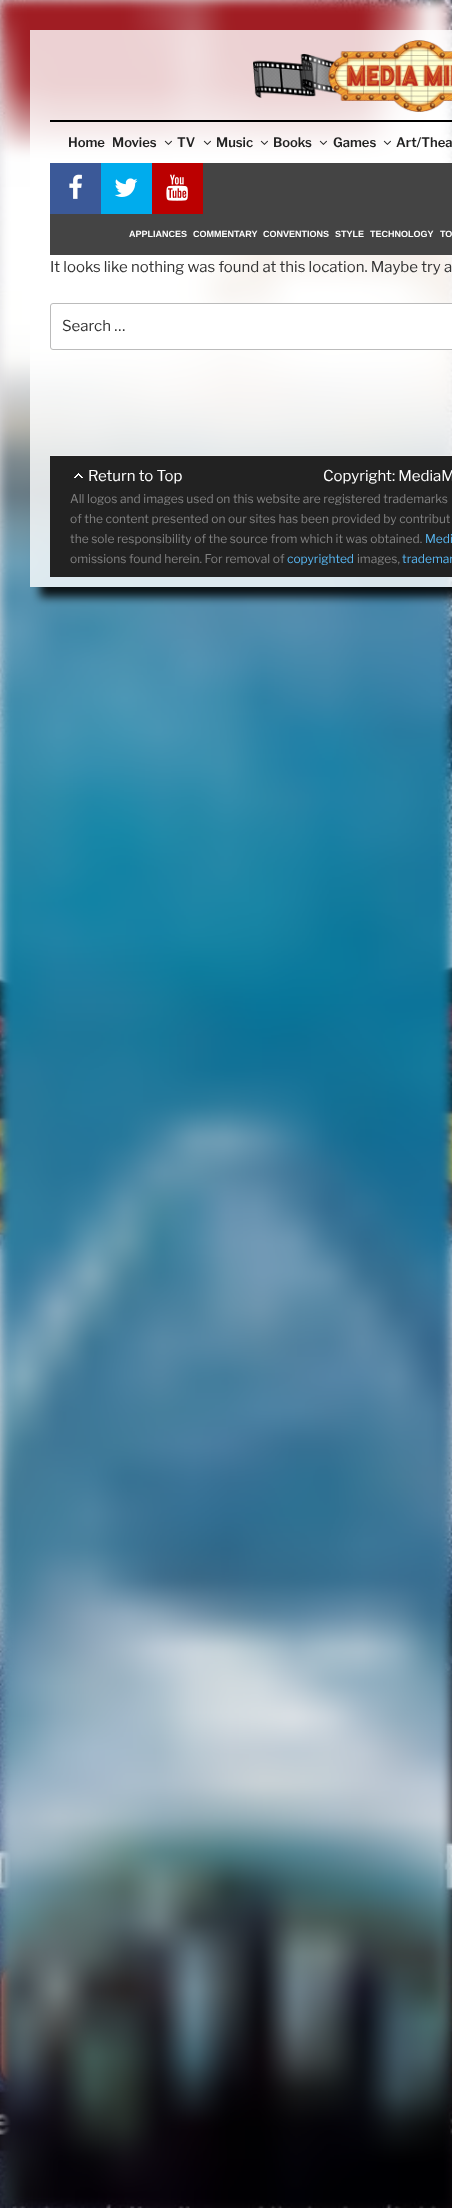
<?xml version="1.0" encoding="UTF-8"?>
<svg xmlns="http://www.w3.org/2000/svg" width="452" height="2208">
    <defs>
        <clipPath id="clip1"><rect x="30" y="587" width="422" height="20"/></clipPath>
        <filter id="blur1" x="-50%" y="-200%" width="200%" height="500%"><feGaussianBlur stdDeviation="5"/></filter>
    </defs>
    <rect width="100%" height="100%" fill="#FFFFFF"/>
    <image x="0" y="0" width="452" height="2208" href="img_01.png"/>
    <image x="0" y="0" width="452" height="2208" href="img_02.png"/>
    <g clip-path="url(#clip1)">
        <rect x="40" y="40" width="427" height="557" fill="#000000" fill-opacity="0.88" filter="url(#blur1)"/>
    </g>
    <rect x="30" y="30" width="422" height="557" fill="#FFFFFF" fill-opacity="0.8"/>
    <image x="253" y="40" width="199" height="72" href="img_03.png"/>
    <rect x="50" y="120" width="402" height="2" fill="#000000"/>
    <text x="68" y="147" font-family="Libre Franklin" font-size="13" font-weight="600" fill="#222222">Home</text>
    <text x="112" y="147" font-family="Libre Franklin" font-size="13" font-weight="600" fill="#222222">Movies</text>
    <image x="164" y="140" width="8" height="5" href="img_04.png"/>
    <text x="177" y="147" font-family="Libre Franklin" font-size="13" font-weight="600" fill="#222222">TV</text>
    <image x="203" y="140" width="8" height="5" href="img_05.png"/>
    <text x="216" y="147" font-family="Libre Franklin" font-size="13" font-weight="600" fill="#222222">Music</text>
    <image x="260" y="140" width="8" height="5" href="img_06.png"/>
    <text x="273" y="147" font-family="Libre Franklin" font-size="13" font-weight="600" fill="#222222">Books</text>
    <image x="319" y="140" width="8" height="5" href="img_07.png"/>
    <text x="333" y="147" font-family="Libre Franklin" font-size="13" font-weight="600" fill="#222222">Games</text>
    <image x="383" y="140" width="8" height="5" href="img_08.png"/>
    <text x="396" y="147" font-family="Libre Franklin" font-size="13" font-weight="600" fill="#222222">Art/Thea</text>
    <rect x="50" y="163" width="402" height="92" fill="#444444"/>
    <rect x="50" y="163" width="51" height="51" fill="#3B5998"/>
    <image x="69" y="174" width="13" height="25" href="img_09.png"/>
    <rect x="101" y="163" width="51" height="51" fill="#00ACED"/>
    <image x="114" y="178" width="24" height="19" href="img_10.png"/>
    <rect x="152" y="163" width="51" height="51" fill="#BB0000"/>
    <image x="166" y="174" width="22" height="27" href="img_11.png"/>
    <text x="129" y="237" font-family="Liberation Sans" font-size="9" font-weight="700" fill="#FFFFFF">APPLIANCES</text>
    <text x="193" y="237" font-family="Liberation Sans" font-size="9" font-weight="700" fill="#FFFFFF">COMMENTARY</text>
    <text x="263" y="237" font-family="Liberation Sans" font-size="9" font-weight="700" fill="#FFFFFF">CONVENTIONS</text>
    <text x="335" y="237" font-family="Liberation Sans" font-size="9" font-weight="700" fill="#FFFFFF">STYLE</text>
    <text x="370" y="237" font-family="Liberation Sans" font-size="9" font-weight="700" fill="#FFFFFF">TECHNOLOGY</text>
    <text x="440" y="237" font-family="Liberation Sans" font-size="9" font-weight="700" fill="#FFFFFF">TO</text>
    <text x="50" y="272" font-family="Libre Franklin" font-size="15" fill="#333333">It looks like nothing was found at this location. Maybe try a</text>
    <rect x="50.5" y="303.5" width="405" height="46" rx="2.5" fill="#FFFFFF" stroke="#BBBBBB"/>
    <text x="62" y="331" font-family="Libre Franklin" font-size="15" fill="#333333">Search …</text>
    <rect x="50" y="455" width="402" height="1" fill="#EEEEEE"/>
    <rect x="50" y="456" width="402" height="121" fill="#222222"/>
    <image x="74" y="473" width="9" height="5" href="img_12.png"/>
    <text x="88" y="481" font-family="Libre Franklin" font-size="15" fill="#FFFFFF">Return to Top</text>
    <text x="323" y="481" font-family="Libre Franklin" font-size="15" fill="#FFFFFF">Copyright: MediaM</text>
    <text font-family="Libre Franklin" font-size="12" fill="#808080">
        <tspan x="70" y="503">All logos and images used on this website are registered trademarks</tspan>
        <tspan x="70" y="523">of the content presented on our sites has been provided by contribut</tspan>
        <tspan x="70" y="543">the sole responsibility of the source from which it was obtained.</tspan>
    </text>
    <text x="425" y="543" font-family="Libre Franklin" font-size="12" fill="#58B5EF">Medi</text>
    <text x="70" y="563" font-family="Libre Franklin" font-size="12" fill="#808080">omissions found herein. For removal of</text>
    <text x="287" y="563" font-family="Libre Franklin" font-size="12" fill="#58B5EF">copyrighted</text>
    <text x="357" y="563" font-family="Libre Franklin" font-size="12" fill="#808080">images,</text>
    <text x="402" y="563" font-family="Libre Franklin" font-size="12" fill="#58B5EF">trademar</text>
</svg>
